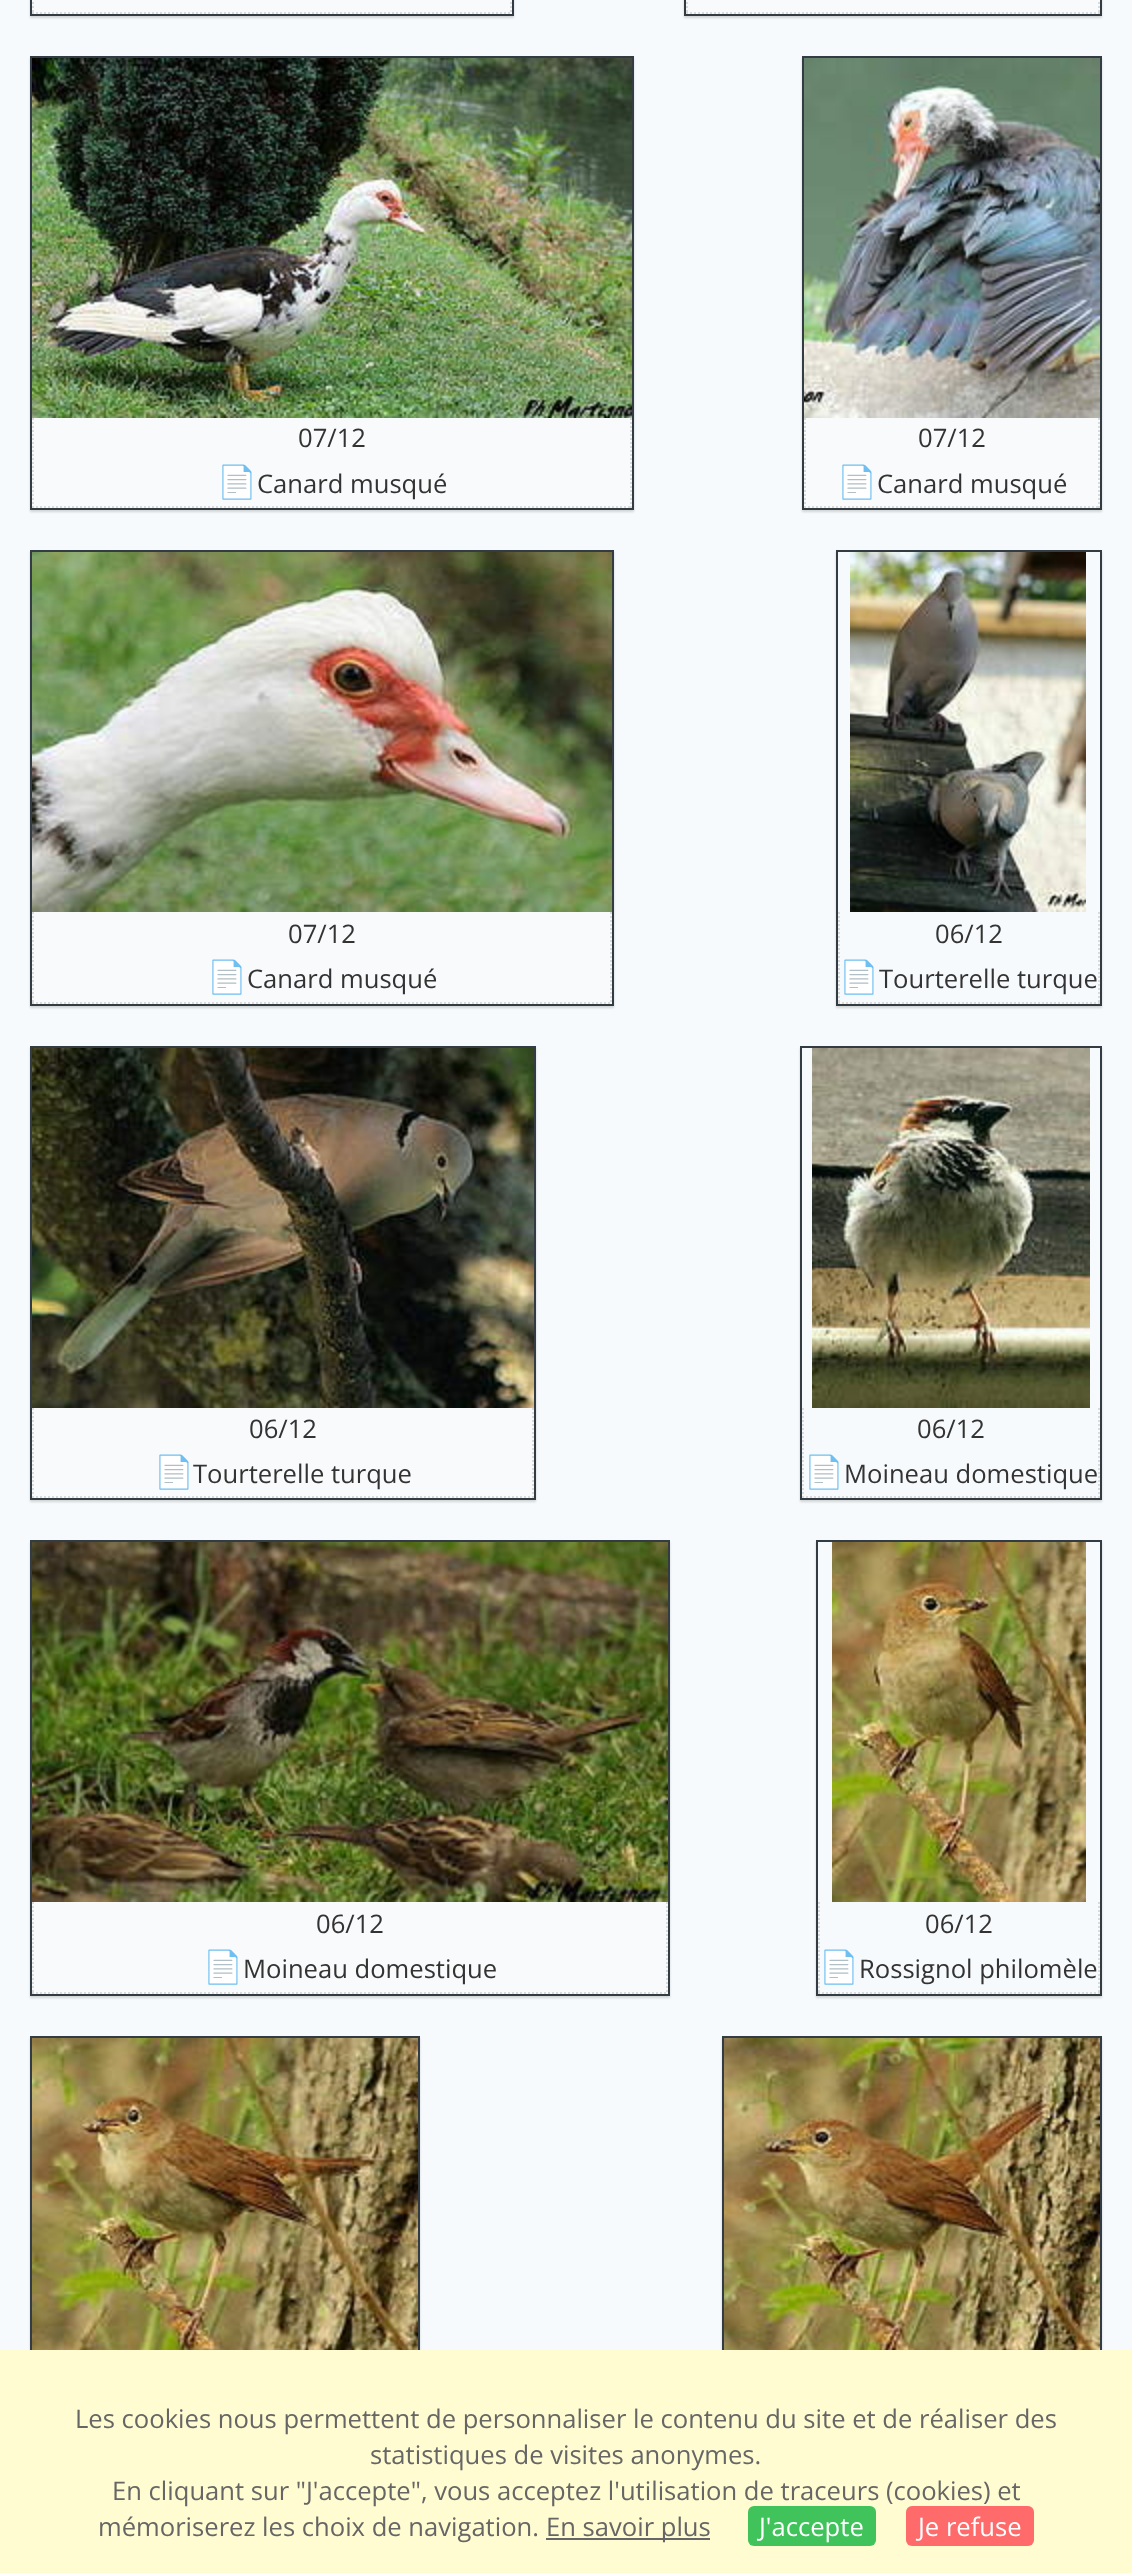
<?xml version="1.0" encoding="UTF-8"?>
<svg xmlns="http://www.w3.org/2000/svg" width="1132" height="2573">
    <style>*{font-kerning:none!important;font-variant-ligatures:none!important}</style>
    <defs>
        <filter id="blur1" x="-50%" y="-200%" width="200%" height="500%"><feGaussianBlur stdDeviation="1"/></filter>
        <clipPath id="clip1"><path d="M 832 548 H 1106 V 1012 H 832 Z M 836 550 H 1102 V 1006 H 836 Z" clip-rule="evenodd"/></clipPath>
        <clipPath id="clip2"><path d="M 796 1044 H 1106 V 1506 H 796 Z M 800 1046 H 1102 V 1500 H 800 Z" clip-rule="evenodd"/></clipPath>
        <clipPath id="clip3"><path d="M 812 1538 H 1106 V 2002 H 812 Z M 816 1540 H 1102 V 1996 H 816 Z" clip-rule="evenodd"/></clipPath>
    </defs>
    <rect width="100%" height="100%" fill="#F7FAFC"/>
    <rect x="30" y="-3" width="484" height="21" fill="#000000" fill-opacity="0.15" filter="url(#blur1)"/>
    <rect x="31" y="-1" width="482" height="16" fill="none" stroke="#343C43" stroke-width="2"/>
    <rect x="32" y="0" width="480" height="14" fill="#F9FAFB"/>
    <path d="M 511 -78 V 14" fill="none" stroke="#DADADA" stroke-width="2" stroke-dasharray="2 2"/>
    <path d="M 32 13 H 512" fill="none" stroke="#DADADA" stroke-width="2" stroke-dasharray="2 2"/>
    <path d="M 33 -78 V 14" fill="none" stroke="#DADADA" stroke-width="2" stroke-dasharray="2 2"/>
    <rect x="684" y="-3" width="418" height="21" fill="#000000" fill-opacity="0.15" filter="url(#blur1)"/>
    <rect x="685" y="-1" width="416" height="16" fill="none" stroke="#343C43" stroke-width="2"/>
    <rect x="686" y="0" width="414" height="14" fill="#F9FAFB"/>
    <path d="M 1099 -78 V 14" fill="none" stroke="#DADADA" stroke-width="2" stroke-dasharray="2 2"/>
    <path d="M 686 13 H 1100" fill="none" stroke="#DADADA" stroke-width="2" stroke-dasharray="2 2"/>
    <path d="M 687 -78 V 14" fill="none" stroke="#DADADA" stroke-width="2" stroke-dasharray="2 2"/>
    <rect x="30" y="58" width="604" height="454" fill="#000000" fill-opacity="0.15" filter="url(#blur1)"/>
    <rect x="31" y="57" width="602" height="452" fill="none" stroke="#343C43" stroke-width="2"/>
    <image x="32" y="58" width="600" height="360" href="img_01.png"/>
    <rect x="32" y="418" width="600" height="90" fill="#F9FAFB"/>
    <path d="M 631 418 V 508" fill="none" stroke="#DADADA" stroke-width="2" stroke-dasharray="2 2"/>
    <path d="M 32 507 H 632" fill="none" stroke="#DADADA" stroke-width="2" stroke-dasharray="2 2"/>
    <path d="M 33 418 V 508" fill="none" stroke="#DADADA" stroke-width="2" stroke-dasharray="2 2"/>
    <text x="298" y="447" font-family="Open Sans" font-size="25.6" fill="#333333">07/12</text>
    <text x="217" y="493" font-family="Noto Color Emoji" font-size="32" fill="#333333">📄</text>
    <text x="257" y="493" font-family="Open Sans" font-size="25.6" fill="#333333">Canard musqué</text>
    <rect x="802" y="58" width="300" height="454" fill="#000000" fill-opacity="0.15" filter="url(#blur1)"/>
    <rect x="803" y="57" width="298" height="452" fill="none" stroke="#343C43" stroke-width="2"/>
    <image x="804" y="58" width="296" height="360" href="img_02.png"/>
    <rect x="804" y="418" width="296" height="90" fill="#F9FAFB"/>
    <path d="M 1099 418 V 508" fill="none" stroke="#DADADA" stroke-width="2" stroke-dasharray="2 2"/>
    <path d="M 804 507 H 1100" fill="none" stroke="#DADADA" stroke-width="2" stroke-dasharray="2 2"/>
    <path d="M 805 418 V 508" fill="none" stroke="#DADADA" stroke-width="2" stroke-dasharray="2 2"/>
    <text x="918" y="447" font-family="Open Sans" font-size="25.6" fill="#333333">07/12</text>
    <text x="837" y="493" font-family="Noto Color Emoji" font-size="32" fill="#333333">📄</text>
    <text x="877" y="493" font-family="Open Sans" font-size="25.6" fill="#333333">Canard musqué</text>
    <rect x="30" y="552" width="584" height="456" fill="#000000" fill-opacity="0.15" filter="url(#blur1)"/>
    <rect x="31" y="551" width="582" height="454" fill="none" stroke="#343C43" stroke-width="2"/>
    <image x="32" y="552" width="580" height="360" href="img_03.png"/>
    <rect x="32" y="912" width="580" height="92" fill="#F9FAFB"/>
    <path d="M 611 912 V 1004" fill="none" stroke="#DADADA" stroke-width="2" stroke-dasharray="2 2"/>
    <path d="M 32 1003 H 612" fill="none" stroke="#DADADA" stroke-width="2" stroke-dasharray="2 2"/>
    <path d="M 33 912 V 1004" fill="none" stroke="#DADADA" stroke-width="2" stroke-dasharray="2 2"/>
    <text x="288" y="943" font-family="Open Sans" font-size="25.6" fill="#333333">07/12</text>
    <text x="207" y="988" font-family="Noto Color Emoji" font-size="32" fill="#333333">📄</text>
    <text x="247" y="988" font-family="Open Sans" font-size="25.6" fill="#333333">Canard musqué</text>
    <g clip-path="url(#clip1)">
        <rect x="836" y="552" width="266" height="456" fill="#000000" fill-opacity="0.15" filter="url(#blur1)"/>
    </g>
    <rect x="837" y="551" width="264" height="454" fill="none" stroke="#343C43" stroke-width="2"/>
    <image x="850" y="552" width="236" height="360" href="img_04.png"/>
    <path d="M 1099 912 V 1004" fill="none" stroke="#DADADA" stroke-width="2" stroke-dasharray="2 2"/>
    <path d="M 838 1003 H 1100" fill="none" stroke="#DADADA" stroke-width="2" stroke-dasharray="2 2"/>
    <path d="M 839 912 V 1004" fill="none" stroke="#DADADA" stroke-width="2" stroke-dasharray="2 2"/>
    <text x="935" y="943" font-family="Open Sans" font-size="25.6" fill="#333333">06/12</text>
    <text x="839" y="988" font-family="Noto Color Emoji" font-size="32" fill="#333333">📄</text>
    <text x="879" y="988" font-family="Open Sans" font-size="25.6" fill="#333333">Tourterelle turque</text>
    <rect x="30" y="1048" width="506" height="454" fill="#000000" fill-opacity="0.15" filter="url(#blur1)"/>
    <rect x="31" y="1047" width="504" height="452" fill="none" stroke="#343C43" stroke-width="2"/>
    <image x="32" y="1048" width="502" height="360" href="img_05.png"/>
    <rect x="32" y="1408" width="502" height="90" fill="#F9FAFB"/>
    <path d="M 533 1408 V 1498" fill="none" stroke="#DADADA" stroke-width="2" stroke-dasharray="2 2"/>
    <path d="M 32 1497 H 534" fill="none" stroke="#DADADA" stroke-width="2" stroke-dasharray="2 2"/>
    <path d="M 33 1408 V 1498" fill="none" stroke="#DADADA" stroke-width="2" stroke-dasharray="2 2"/>
    <text x="249" y="1438" font-family="Open Sans" font-size="25.6" fill="#333333">06/12</text>
    <text x="154" y="1483" font-family="Noto Color Emoji" font-size="32" fill="#333333">📄</text>
    <text x="193" y="1483" font-family="Open Sans" font-size="25.6" fill="#333333">Tourterelle turque</text>
    <g clip-path="url(#clip2)">
        <rect x="800" y="1048" width="302" height="454" fill="#000000" fill-opacity="0.15" filter="url(#blur1)"/>
    </g>
    <rect x="801" y="1047" width="300" height="452" fill="none" stroke="#343C43" stroke-width="2"/>
    <image x="812" y="1048" width="278" height="360" href="img_06.png"/>
    <path d="M 1099 1408 V 1498" fill="none" stroke="#DADADA" stroke-width="2" stroke-dasharray="2 2"/>
    <path d="M 802 1497 H 1100" fill="none" stroke="#DADADA" stroke-width="2" stroke-dasharray="2 2"/>
    <path d="M 803 1408 V 1498" fill="none" stroke="#DADADA" stroke-width="2" stroke-dasharray="2 2"/>
    <text x="917" y="1438" font-family="Open Sans" font-size="25.6" fill="#333333">06/12</text>
    <text x="804" y="1483" font-family="Noto Color Emoji" font-size="32" fill="#333333">📄</text>
    <text x="844" y="1483" font-family="Open Sans" font-size="25.6" fill="#333333">Moineau domestique</text>
    <rect x="30" y="1542" width="640" height="456" fill="#000000" fill-opacity="0.15" filter="url(#blur1)"/>
    <rect x="31" y="1541" width="638" height="454" fill="none" stroke="#343C43" stroke-width="2"/>
    <image x="32" y="1542" width="636" height="360" href="img_07.png"/>
    <rect x="32" y="1902" width="636" height="92" fill="#F9FAFB"/>
    <path d="M 667 1902 V 1994" fill="none" stroke="#DADADA" stroke-width="2" stroke-dasharray="2 2"/>
    <path d="M 32 1993 H 668" fill="none" stroke="#DADADA" stroke-width="2" stroke-dasharray="2 2"/>
    <path d="M 33 1902 V 1994" fill="none" stroke="#DADADA" stroke-width="2" stroke-dasharray="2 2"/>
    <text x="316" y="1933" font-family="Open Sans" font-size="25.6" fill="#333333">06/12</text>
    <text x="203" y="1978" font-family="Noto Color Emoji" font-size="32" fill="#333333">📄</text>
    <text x="243" y="1978" font-family="Open Sans" font-size="25.6" fill="#333333">Moineau domestique</text>
    <g clip-path="url(#clip3)">
        <rect x="816" y="1542" width="286" height="456" fill="#000000" fill-opacity="0.15" filter="url(#blur1)"/>
    </g>
    <rect x="817" y="1541" width="284" height="454" fill="none" stroke="#343C43" stroke-width="2"/>
    <image x="832" y="1542" width="254" height="360" href="img_08.png"/>
    <path d="M 1099 1902 V 1994" fill="none" stroke="#DADADA" stroke-width="2" stroke-dasharray="2 2"/>
    <path d="M 818 1993 H 1100" fill="none" stroke="#DADADA" stroke-width="2" stroke-dasharray="2 2"/>
    <path d="M 819 1902 V 1994" fill="none" stroke="#DADADA" stroke-width="2" stroke-dasharray="2 2"/>
    <text x="925" y="1933" font-family="Open Sans" font-size="25.6" fill="#333333">06/12</text>
    <text x="819" y="1978" font-family="Noto Color Emoji" font-size="32" fill="#333333">📄</text>
    <text x="859" y="1978" font-family="Open Sans" font-size="25.6" fill="#333333">Rossignol philomèle</text>
    <rect x="30" y="2038" width="390" height="454" fill="#000000" fill-opacity="0.15" filter="url(#blur1)"/>
    <rect x="31" y="2037" width="388" height="452" fill="none" stroke="#343C43" stroke-width="2"/>
    <image x="32" y="2038" width="386" height="312" href="img_09.png"/>
    <rect x="722" y="2038" width="380" height="454" fill="#000000" fill-opacity="0.15" filter="url(#blur1)"/>
    <rect x="723" y="2037" width="378" height="452" fill="none" stroke="#343C43" stroke-width="2"/>
    <image x="724" y="2038" width="376" height="312" href="img_10.png"/>
    <rect x="0" y="2350" width="1132" height="223" fill="#FFFCD1"/>
    <text x="75" y="2428" font-family="Open Sans" font-size="25.6" fill="#666666">Les cookies nous permettent de personnaliser le contenu du site et de réaliser des</text>
    <text x="370" y="2464" font-family="Open Sans" font-size="25.6" fill="#666666">statistiques de visites anonymes.</text>
    <text x="112" y="2500" font-family="Open Sans" font-size="25.6" fill="#666666">En cliquant sur "J'accepte", vous acceptez l'utilisation de traceurs (cookies) et</text>
    <text x="98" y="2536" font-family="Open Sans" font-size="25.6" fill="#666666">mémoriserez les choix de navigation.</text>
    <rect x="546" y="2538" width="164" height="2" fill="#666666"/>
    <text x="546" y="2536" font-family="Open Sans" font-size="25.6" fill="#666666">En savoir plus</text>
    <rect x="748" y="2506" width="128" height="40" rx="6" fill="#3FC35A"/>
    <text x="759" y="2536" font-family="Open Sans" font-size="25.6" fill="#FFFFFF">J'accepte</text>
    <rect x="906" y="2506" width="128" height="40" rx="6" fill="#FF6B6B"/>
    <text x="918" y="2536" font-family="Open Sans" font-size="25.6" fill="#FFFFFF">Je refuse</text>
</svg>
